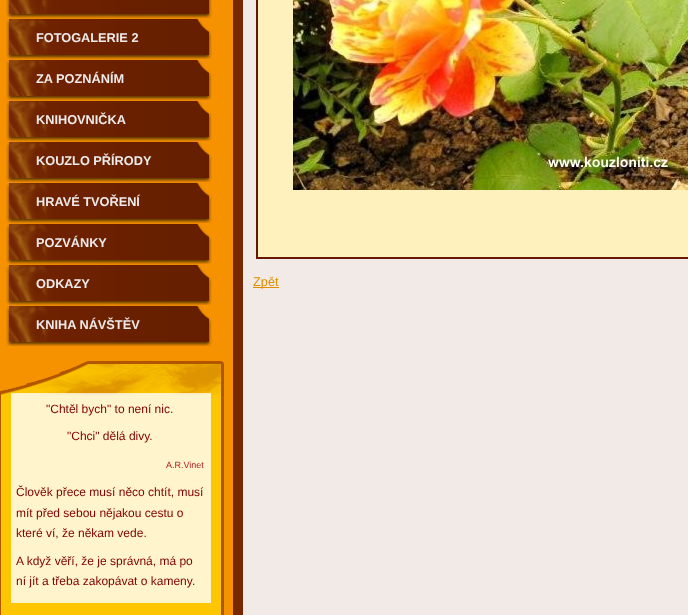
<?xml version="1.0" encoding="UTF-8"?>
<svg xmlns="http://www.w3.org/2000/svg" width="688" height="615">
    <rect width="100%" height="100%" fill="#F69100"/>
    <image x="6" y="0" width="206" height="18" href="img_01.png"/>
    <image x="6" y="18" width="206" height="41" href="img_02.png"/>
    <text x="36" y="42" font-family="Liberation Sans" font-size="12.75" font-weight="700" fill="#EEEAEA">FOTOGALERIE 2</text>
    <image x="6" y="59" width="206" height="41" href="img_02.png"/>
    <text x="36" y="83" font-family="Liberation Sans" font-size="12.75" font-weight="700" fill="#EEEAEA">ZA POZNÁNÍM</text>
    <image x="6" y="100" width="206" height="41" href="img_02.png"/>
    <text x="36" y="124" font-family="Liberation Sans" font-size="12.75" font-weight="700" fill="#EEEAEA">KNIHOVNIČKA</text>
    <image x="6" y="141" width="206" height="41" href="img_02.png"/>
    <text x="36" y="165" font-family="Liberation Sans" font-size="12.75" font-weight="700" fill="#EEEAEA">KOUZLO PŘÍRODY</text>
    <image x="6" y="182" width="206" height="41" href="img_02.png"/>
    <text x="36" y="206" font-family="Liberation Sans" font-size="12.75" font-weight="700" fill="#EEEAEA">HRAVÉ TVOŘENÍ</text>
    <image x="6" y="223" width="206" height="41" href="img_02.png"/>
    <text x="36" y="247" font-family="Liberation Sans" font-size="12.75" font-weight="700" fill="#EEEAEA">POZVÁNKY</text>
    <image x="6" y="264" width="206" height="41" href="img_02.png"/>
    <text x="36" y="288" font-family="Liberation Sans" font-size="12.75" font-weight="700" fill="#EEEAEA">ODKAZY</text>
    <image x="6" y="305" width="206" height="41" href="img_02.png"/>
    <text x="36" y="329" font-family="Liberation Sans" font-size="12.75" font-weight="700" fill="#EEEAEA">KNIHA NÁVŠTĚV</text>
    <image x="0" y="361" width="224" height="34" href="img_03.png"/>
    <image x="0" y="395" width="224" height="208" href="img_04.png"/>
    <text x="46" y="413" font-family="Liberation Sans" font-size="12" fill="#800000">"Chtěl bych" to není nic.</text>
    <text x="67" y="440" font-family="Liberation Sans" font-size="12" fill="#800000">"Chci" dělá divy.</text>
    <text x="166" y="468" font-family="Liberation Sans" font-size="9" fill="#B22222">A.R.Vinet</text>
    <text font-family="Liberation Sans" font-size="12" fill="#800000">
        <tspan x="16" y="496">Člověk přece musí něco chtít, musí</tspan>
        <tspan x="16" y="517">mít před sebou nějakou cestu o</tspan>
        <tspan x="16" y="537">které ví, že někam vede.</tspan>
    </text>
    <text font-family="Liberation Sans" font-size="12" fill="#800000">
        <tspan x="16" y="565">A když věří, že je správná, má po</tspan>
        <tspan x="16" y="585">ní jít a třeba zakopávat o kameny.</tspan>
    </text>
    <image x="0" y="603" width="224" height="12" href="img_05.png"/>
    <image x="233" y="0" width="10" height="615" href="img_06.png"/>
    <rect x="243" y="0" width="445" height="615" fill="#F2EAE6"/>
    <rect x="257" y="-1" width="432" height="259" fill="#FEF1BE" stroke="#661800" stroke-width="2"/>
    <image x="293" y="0" width="395" height="190" href="img_07.png"/>
    <rect x="253" y="287" width="26" height="1" fill="#DF8F00"/>
    <text x="253" y="286" font-family="Liberation Sans" font-size="12.75" fill="#DF8F00">Zpět</text>
</svg>
